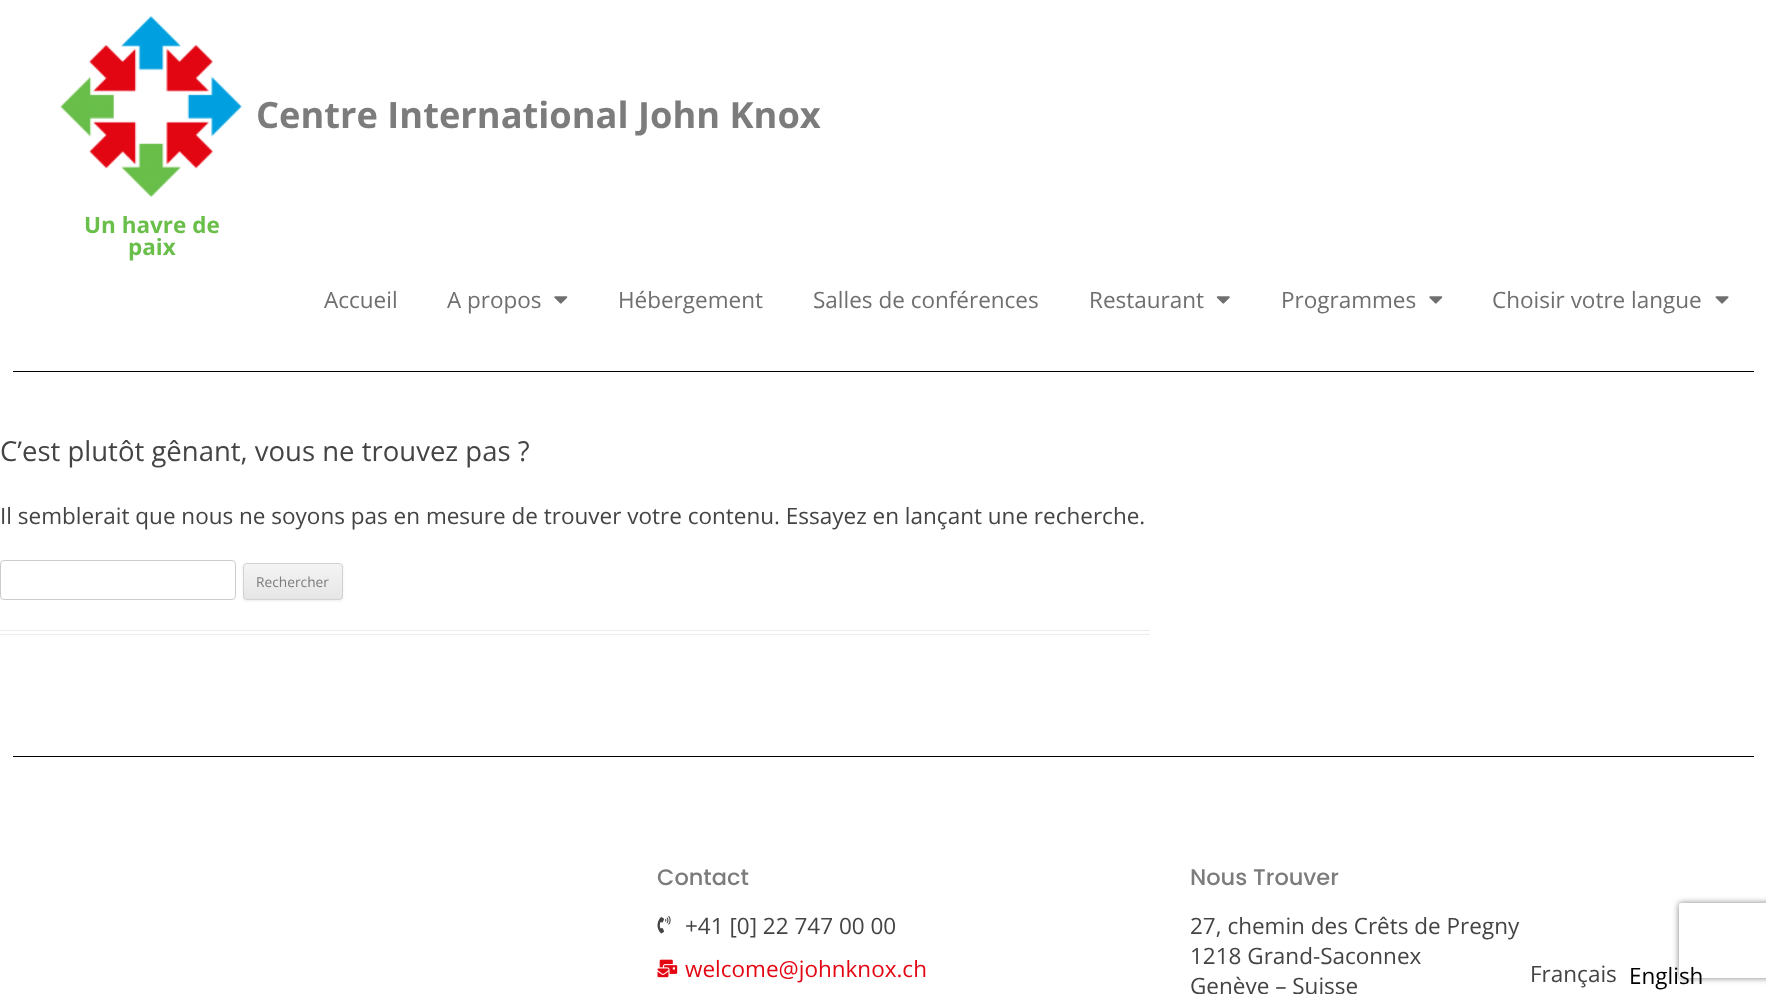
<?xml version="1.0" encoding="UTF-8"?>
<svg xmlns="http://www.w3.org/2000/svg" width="1766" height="994">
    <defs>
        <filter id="blur1" x="-50%" y="-200%" width="200%" height="500%"><feGaussianBlur stdDeviation="1"/></filter>
        <clipPath id="clip1"><rect x="243" y="563" width="100" height="37" rx="4"/></clipPath>
        <linearGradient id="g1" gradientUnits="userSpaceOnUse" x1="293" y1="564" x2="293" y2="599"><stop offset="0" stop-color="#F4F4F4"/><stop offset="1" stop-color="#E6E6E6"/></linearGradient>
        <clipPath id="clip2"><path d="M 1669 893 H 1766 V 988 H 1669 Z M 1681.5 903 H 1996.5 C 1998 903 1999 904 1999 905.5 V 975.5 C 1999 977 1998 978 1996.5 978 H 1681.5 C 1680 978 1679 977 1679 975.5 V 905.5 C 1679 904 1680 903 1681.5 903 Z" clip-rule="evenodd"/></clipPath>
        <filter id="blur2" x="-50%" y="-200%" width="200%" height="500%"><feGaussianBlur stdDeviation="3"/></filter>
    </defs>
    <rect width="100%" height="100%" fill="#FFFFFF"/>
    <text x="256" y="128" font-family="Open Sans" font-size="36.25" font-weight="700" fill="#7C7C7C">Centre International John Knox</text>
    <image x="60" y="16" width="182" height="182" href="img_01.png"/>
    <text x="84" y="233" font-family="Open Sans" font-size="22.5" font-weight="700" fill="#69BF4A">Un havre de</text>
    <text x="128" y="255" font-family="Open Sans" font-size="22.5" font-weight="700" fill="#69BF4A">paix</text>
    <text x="324" y="308" font-family="Open Sans" font-size="22.5" fill="#6F6F6F">Accueil</text>
    <text x="447" y="308" font-family="Open Sans" font-size="22.5" fill="#6F6F6F">A propos</text>
    <image x="554" y="296" width="14" height="8" href="img_02.png"/>
    <text x="618" y="308" font-family="Open Sans" font-size="22.5" fill="#6F6F6F">Hébergement</text>
    <text x="813" y="308" font-family="Open Sans" font-size="22.5" fill="#6F6F6F">Salles de conférences</text>
    <text x="1089" y="308" font-family="Open Sans" font-size="22.5" fill="#6F6F6F">Restaurant</text>
    <image x="1216" y="296" width="14" height="8" href="img_03.png"/>
    <text x="1281" y="308" font-family="Open Sans" font-size="22.5" fill="#6F6F6F">Programmes</text>
    <image x="1429" y="296" width="14" height="8" href="img_02.png"/>
    <text x="1492" y="308" font-family="Open Sans" font-size="22.5" fill="#6F6F6F">Choisir votre langue</text>
    <image x="1715" y="296" width="14" height="8" href="img_04.png"/>
    <rect x="13" y="371" width="1741" height="1" fill="#000000"/>
    <rect x="0" y="630" width="1150" height="1" fill="#EDEDED"/>
    <rect x="0" y="634" width="1150" height="1" fill="#EDEDED"/>
    <text x="0" y="461" font-family="Open Sans" font-size="27.5" fill="#444444">C’est plutôt gênant, vous ne trouvez pas ?</text>
    <text x="0" y="524" font-family="Open Sans" font-size="22.5" fill="#444444">Il semblerait que nous ne soyons pas en mesure de trouver votre contenu. Essayez en lançant une recherche.</text>
    <rect x="0.5" y="560.5" width="235" height="39" rx="3.5" fill="none" stroke="#CCCCCC"/>
    <rect x="243" y="564" width="100" height="37" rx="4" fill="#404040" fill-opacity="0.1" filter="url(#blur1)"/>
    <g clip-path="url(#clip1)">
        <rect x="243" y="564" width="100" height="35" fill="url(#g1)"/>
    </g>
    <rect x="243.5" y="563.5" width="99" height="36" rx="3.5" fill="none" stroke="#D2D2D2"/>
    <text x="256" y="587" font-family="Open Sans" font-size="13.75" fill="#7C7C7C">Rechercher</text>
    <rect x="13" y="756" width="1741" height="1" fill="#000000"/>
    <text x="657" y="885" font-family="Poppins" font-size="22.5" font-weight="500" fill="#7C7C7C">Contact</text>
    <image x="657" y="916" width="14" height="18" href="img_05.png"/>
    <text x="685" y="934" font-family="Open Sans" font-size="22.5" fill="#444444">+41 [0] 22 747 00 00</text>
    <image x="657" y="959" width="21" height="19" href="img_06.png"/>
    <text x="685" y="977" font-family="Open Sans" font-size="22.5" fill="#E30613">welcome@johnknox.ch</text>
    <text x="1190" y="885" font-family="Poppins" font-size="22.5" font-weight="500" fill="#7C7C7C">Nous Trouver</text>
    <text font-family="Open Sans" font-size="22.5" fill="#444444">
        <tspan x="1190" y="934">27, chemin des Crêts de Pregny</tspan>
        <tspan x="1190" y="964">1218 Grand-Saconnex</tspan>
        <tspan x="1190" y="994">Genève – Suisse</tspan>
    </text>
    <text x="1530" y="982" font-family="Open Sans" font-size="22.5" fill="#444444">Français</text>
    <g clip-path="url(#clip2)">
        <rect x="1679" y="903" width="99" height="75" rx="2.5" fill="#808080" filter="url(#blur2)"/>
    </g>
    <text x="1629" y="984" font-family="Open Sans" font-size="22.5" fill="#000000">English</text>
</svg>
